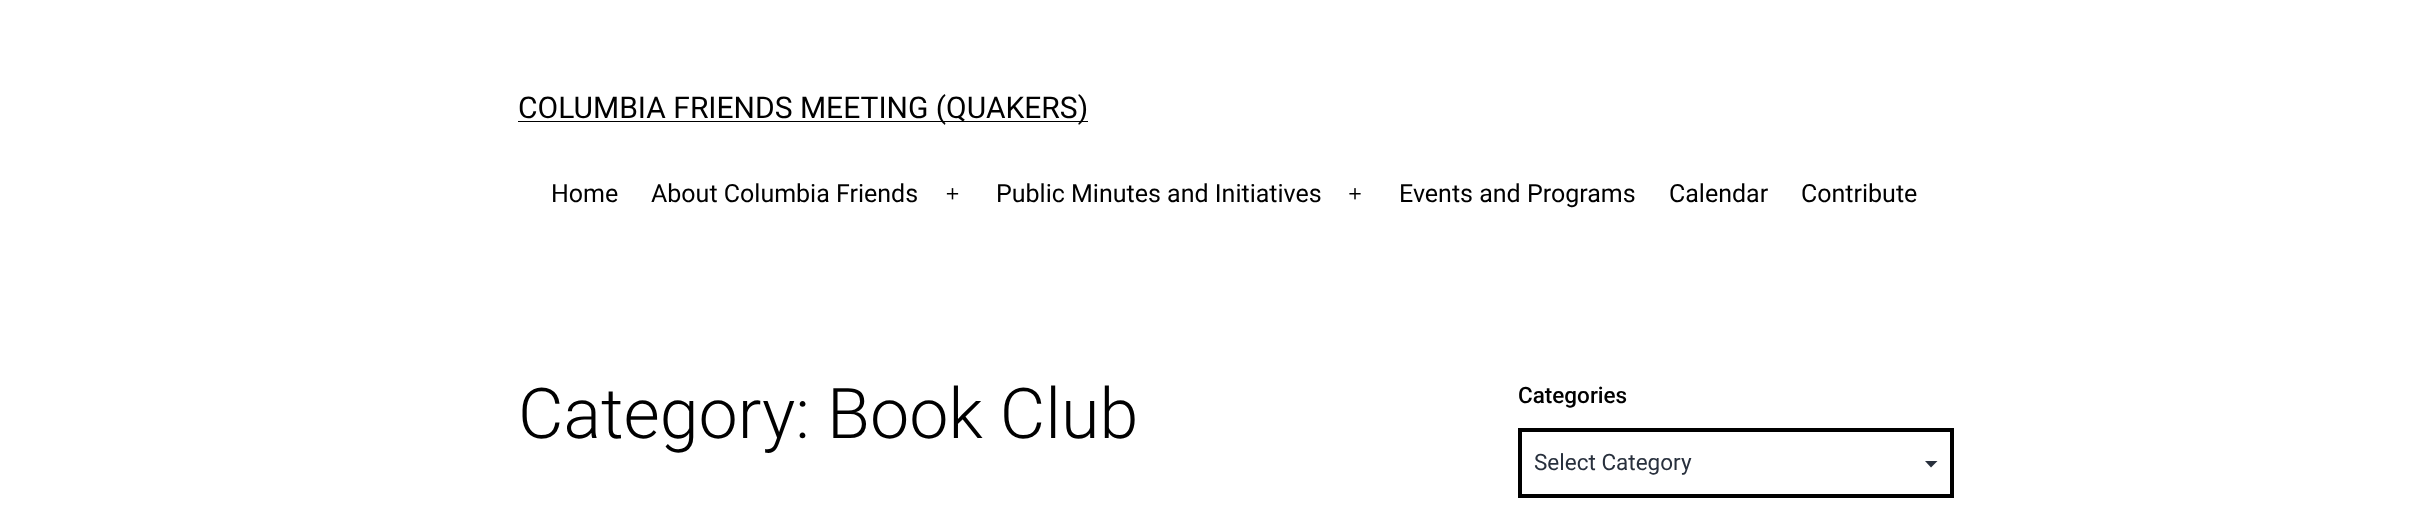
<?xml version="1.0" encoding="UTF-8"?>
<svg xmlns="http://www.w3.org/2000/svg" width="2434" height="511">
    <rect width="100%" height="100%" fill="#FFFFFF"/>
    <rect x="518" y="121" width="570" height="1" fill="#000000"/>
    <text x="518" y="118" font-family="Roboto" font-size="30" fill="#000000">COLUMBIA FRIENDS MEETING (QUAKERS)</text>
    <text x="551" y="202" font-family="Roboto" font-size="25" fill="#000000">Home</text>
    <text x="651" y="202" font-family="Roboto" font-size="25" fill="#000000">About Columbia Friends</text>
    <image x="946" y="188" width="13" height="12" href="img_01.png"/>
    <text x="996" y="202" font-family="Roboto" font-size="25" fill="#000000">Public Minutes and Initiatives</text>
    <image x="1349" y="188" width="12" height="12" href="img_02.png"/>
    <text x="1399" y="202" font-family="Roboto" font-size="25" fill="#000000">Events and Programs</text>
    <text x="1669" y="202" font-family="Roboto" font-size="25" fill="#000000">Calendar</text>
    <text x="1801" y="202" font-family="Roboto" font-size="25" fill="#000000">Contribute</text>
    <text x="518" y="438" font-family="Roboto" font-size="70" font-weight="300" fill="#000000">Category: Book Club</text>
    <text x="1518" y="403" font-family="Roboto" font-size="22.5" font-weight="500" fill="#000000">Categories</text>
    <path d="M 1925 461 H 1937.5 L 1931 467.5 Z" fill="#28303D"/>
    <rect x="1520" y="430" width="432" height="66" fill="none" stroke="#000000" stroke-width="4"/>
    <text x="1534" y="470" font-family="Roboto" font-size="22.5" fill="#28303D">Select Category</text>
</svg>
